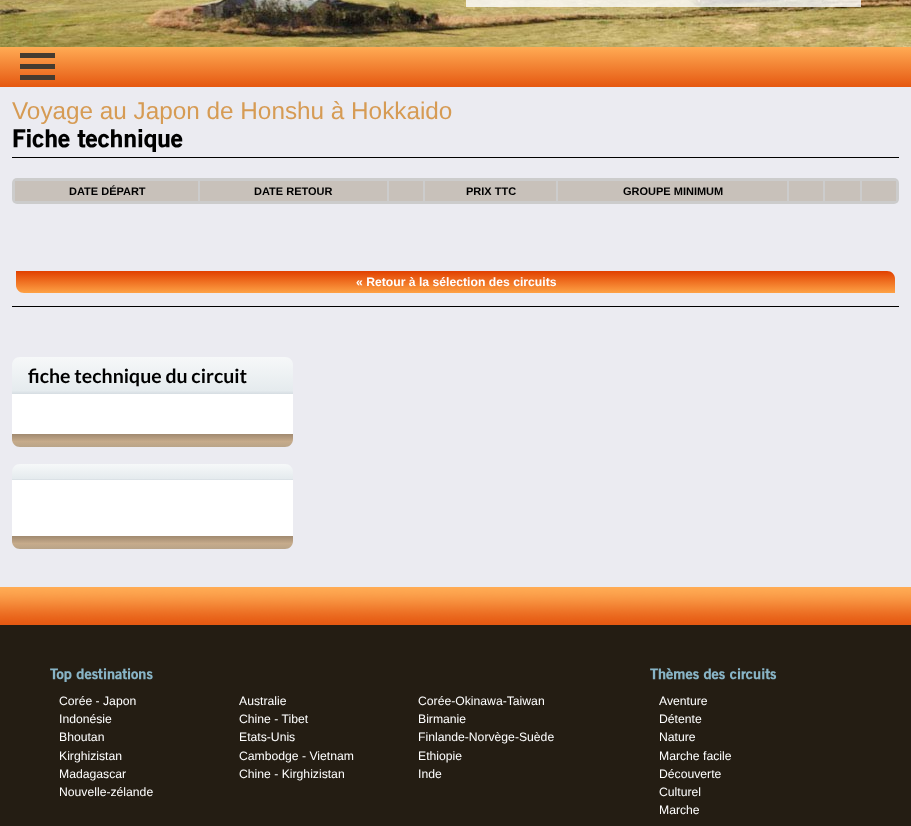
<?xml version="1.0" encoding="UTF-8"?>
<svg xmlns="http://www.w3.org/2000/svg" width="911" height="826">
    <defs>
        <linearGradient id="g1" gradientUnits="userSpaceOnUse" x1="456" y1="47" x2="456" y2="87"><stop offset="0" stop-color="#FFAB54"/><stop offset="1" stop-color="#E55811"/></linearGradient>
        <linearGradient id="g2" gradientUnits="userSpaceOnUse" x1="16" y1="271" x2="16" y2="293"><stop offset="0" stop-color="#E14000"/><stop offset="1" stop-color="#FEA245"/></linearGradient>
        <linearGradient id="g3" gradientUnits="userSpaceOnUse" x1="153" y1="357" x2="153" y2="394"><stop offset="0" stop-color="#F6F8F9"/><stop offset="0.91" stop-color="#E5EBEE"/><stop offset="0.99" stop-color="#D7DEE3"/><stop offset="1" stop-color="#F5F7F9"/></linearGradient>
        <linearGradient id="g4" gradientUnits="userSpaceOnUse" x1="153" y1="434" x2="153" y2="447"><stop offset="0.04" stop-color="#A38C72"/><stop offset="0.58" stop-color="#C6AB8B"/><stop offset="1" stop-color="#B9A488"/></linearGradient>
        <linearGradient id="g5" gradientUnits="userSpaceOnUse" x1="153" y1="464" x2="153" y2="480"><stop offset="0" stop-color="#F6F8F9"/><stop offset="0.91" stop-color="#E5EBEE"/><stop offset="0.99" stop-color="#D7DEE3"/><stop offset="1" stop-color="#F5F7F9"/></linearGradient>
        <linearGradient id="g6" gradientUnits="userSpaceOnUse" x1="153" y1="536" x2="153" y2="549"><stop offset="0.04" stop-color="#A38C72"/><stop offset="0.58" stop-color="#C6AB8B"/><stop offset="1" stop-color="#B9A488"/></linearGradient>
    </defs>
    <rect width="100%" height="100%" fill="#EBEBF1"/>
    <image x="0" y="0" width="911" height="47" href="img_01.png"/>
    <rect x="466" y="0" width="395" height="7" fill="#FFFFFF" fill-opacity="0.8"/>
    <rect x="0" y="47" width="911" height="40" fill="url(#g1)"/>
    <rect x="20" y="53" width="35" height="5" fill="#443B30"/>
    <rect x="20" y="64" width="35" height="5" fill="#443B30"/>
    <rect x="20" y="75" width="35" height="5" fill="#443B30"/>
    <text x="12" y="119" font-family="Liberation Sans" font-size="24.3" fill="#D69B54">Voyage au Japon de Honshu à Hokkaido</text>
    <text x="12" y="147" font-family="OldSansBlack" font-size="24.3" font-weight="900" fill="#000000">Fiche technique</text>
    <rect x="12" y="157" width="887" height="1" fill="#000000"/>
    <rect x="12" y="178" width="887" height="26" rx="5" fill="#CCCCCC"/>
    <rect x="15" y="181" width="183" height="20" fill="#C8C1BA"/>
    <text x="69" y="195" font-family="Liberation Sans" font-size="11" font-weight="700" fill="#000000">DATE DÉPART</text>
    <rect x="200" y="181" width="187" height="20" fill="#C8C1BA"/>
    <text x="254" y="195" font-family="Liberation Sans" font-size="11" font-weight="700" fill="#000000">DATE RETOUR</text>
    <rect x="389" y="181" width="34" height="20" fill="#C8C1BA"/>
    <rect x="425" y="181" width="131" height="20" fill="#C8C1BA"/>
    <text x="466" y="195" font-family="Liberation Sans" font-size="11" font-weight="700" fill="#000000">PRIX TTC</text>
    <rect x="558" y="181" width="229" height="20" fill="#C8C1BA"/>
    <text x="623" y="195" font-family="Liberation Sans" font-size="11" font-weight="700" fill="#000000">GROUPE MINIMUM</text>
    <rect x="789" y="181" width="34" height="20" fill="#C8C1BA"/>
    <rect x="825" y="181" width="35" height="20" fill="#C8C1BA"/>
    <rect x="862" y="181" width="34" height="20" fill="#C8C1BA"/>
    <path d="M 16 271 H 887 C 891.5 271 895 274.5 895 279 V 293 H 24 C 19.5 293 16 289.5 16 285 Z" fill="url(#g2)"/>
    <text x="356" y="286" font-family="Liberation Sans" font-size="12.2" font-weight="700" fill="#FFFFFF">« Retour à la sélection des circuits</text>
    <rect x="12" y="306" width="887" height="1" fill="#000000"/>
    <path d="M 20 357 H 285 C 289.5 357 293 360.5 293 365 V 394 H 12 V 365 C 12 360.5 15.5 357 20 357 Z" fill="url(#g3)"/>
    <text x="28" y="383" font-family="Lato" font-size="19.5" font-weight="700" fill="#000000">fiche technique du circuit</text>
    <rect x="12" y="394" width="281" height="40" fill="#FFFFFF"/>
    <path d="M 12 434 H 293 V 439 C 293 443.5 289.5 447 285 447 H 20 C 15.5 447 12 443.5 12 439 Z" fill="url(#g4)"/>
    <path d="M 20 464 H 285 C 289.5 464 293 467.5 293 472 V 480 H 12 V 472 C 12 467.5 15.5 464 20 464 Z" fill="url(#g5)"/>
    <rect x="12" y="480" width="281" height="56" fill="#FFFFFF"/>
    <path d="M 12 536 H 293 V 541 C 293 545.5 289.5 549 285 549 H 20 C 15.5 549 12 545.5 12 541 Z" fill="url(#g6)"/>
    <rect x="0" y="625" width="911" height="201" fill="#241D13"/>
    <image x="0" y="587" width="911" height="38" href="img_02.png"/>
    <text x="50" y="679" font-family="OldSansBlack" font-size="14.5" font-weight="900" fill="#88B4C6">Top destinations</text>
    <text x="59" y="705" font-family="Liberation Sans" font-size="12.2" fill="#FFFFFF">Corée - Japon</text>
    <text x="239" y="705" font-family="Liberation Sans" font-size="12.2" fill="#FFFFFF">Australie</text>
    <text x="418" y="705" font-family="Liberation Sans" font-size="12.2" fill="#FFFFFF">Corée-Okinawa-Taiwan</text>
    <text x="59" y="723" font-family="Liberation Sans" font-size="12.2" fill="#FFFFFF">Indonésie</text>
    <text x="239" y="723" font-family="Liberation Sans" font-size="12.2" fill="#FFFFFF">Chine - Tibet</text>
    <text x="418" y="723" font-family="Liberation Sans" font-size="12.2" fill="#FFFFFF">Birmanie</text>
    <text x="59" y="741" font-family="Liberation Sans" font-size="12.2" fill="#FFFFFF">Bhoutan</text>
    <text x="239" y="741" font-family="Liberation Sans" font-size="12.2" fill="#FFFFFF">Etats-Unis</text>
    <text x="418" y="741" font-family="Liberation Sans" font-size="12.2" fill="#FFFFFF">Finlande-Norvège-Suède</text>
    <text x="59" y="760" font-family="Liberation Sans" font-size="12.2" fill="#FFFFFF">Kirghizistan</text>
    <text x="239" y="760" font-family="Liberation Sans" font-size="12.2" fill="#FFFFFF">Cambodge - Vietnam</text>
    <text x="418" y="760" font-family="Liberation Sans" font-size="12.2" fill="#FFFFFF">Ethiopie</text>
    <text x="59" y="778" font-family="Liberation Sans" font-size="12.2" fill="#FFFFFF">Madagascar</text>
    <text x="239" y="778" font-family="Liberation Sans" font-size="12.2" fill="#FFFFFF">Chine - Kirghizistan</text>
    <text x="418" y="778" font-family="Liberation Sans" font-size="12.2" fill="#FFFFFF">Inde</text>
    <text x="59" y="796" font-family="Liberation Sans" font-size="12.2" fill="#FFFFFF">Nouvelle-zélande</text>
    <text x="650" y="679" font-family="OldSansBlack" font-size="14.5" font-weight="900" fill="#88B4C6">Thèmes des circuits</text>
    <text font-family="Liberation Sans" font-size="12.2" fill="#FFFFFF">
        <tspan x="659" y="705">Aventure</tspan>
        <tspan x="659" y="723">Détente</tspan>
        <tspan x="659" y="741">Nature</tspan>
        <tspan x="659" y="760">Marche facile</tspan>
        <tspan x="659" y="778">Découverte</tspan>
        <tspan x="659" y="796">Culturel</tspan>
        <tspan x="659" y="814">Marche</tspan>
    </text>
</svg>
